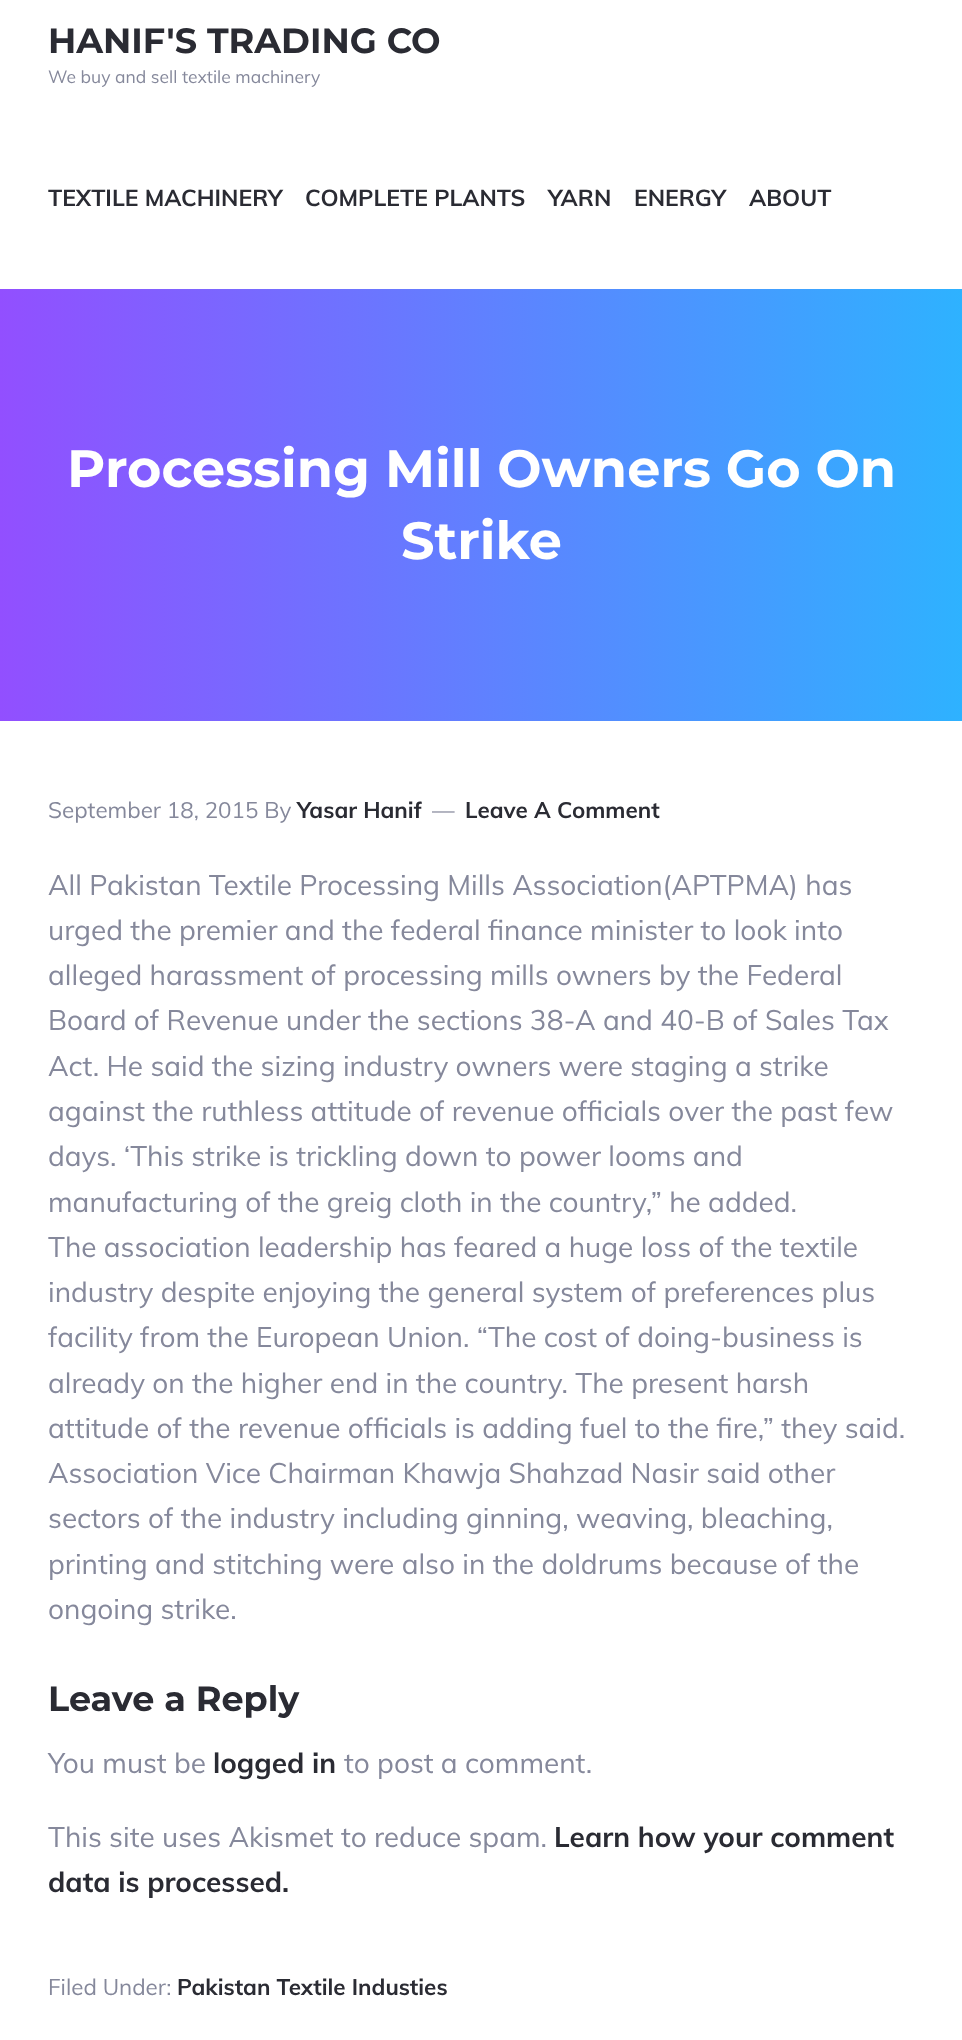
<?xml version="1.0" encoding="UTF-8"?>
<svg xmlns="http://www.w3.org/2000/svg" width="962" height="2040">
    <defs>
        <linearGradient id="g1" gradientUnits="userSpaceOnUse" x1="0" y1="505" x2="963" y2="505"><stop offset="0" stop-color="#924FFF"/><stop offset="1" stop-color="#2EB2FF"/></linearGradient>
    </defs>
    <rect width="100%" height="100%" fill="#FFFFFF"/>
    <text x="48" y="53" font-family="Montserrat" font-size="35" font-weight="100" fill="#2A2B33">HANIF'S TRADING CO</text>
    <text x="48" y="83" font-family="Muli" font-size="17.5" fill="#85889B">We buy and sell textile machinery</text>
    <text x="48" y="206" font-family="Muli" font-size="23" font-weight="700" fill="#2A2B33">TEXTILE MACHINERY</text>
    <text x="305" y="206" font-family="Muli" font-size="23" font-weight="700" fill="#2A2B33">COMPLETE PLANTS</text>
    <text x="548" y="206" font-family="Muli" font-size="23" font-weight="700" fill="#2A2B33">YARN</text>
    <text x="634" y="206" font-family="Muli" font-size="23" font-weight="700" fill="#2A2B33">ENERGY</text>
    <text x="749" y="206" font-family="Muli" font-size="23" font-weight="700" fill="#2A2B33">ABOUT</text>
    <rect x="0" y="289" width="962" height="432" fill="url(#g1)"/>
    <text x="67" y="487" font-family="Montserrat" font-size="52.5" font-weight="100" fill="#FFFFFF">Processing Mill Owners Go On</text>
    <text x="401" y="559" font-family="Montserrat" font-size="52.5" font-weight="100" fill="#FFFFFF">Strike</text>
    <text x="48" y="818" font-family="Muli" font-size="22.4" fill="#85889B">September 18, 2015 By</text>
    <text x="297" y="818" font-family="Muli" font-size="22.4" font-weight="700" fill="#2A2B33">Yasar Hanif</text>
    <text x="432" y="818" font-family="Muli" font-size="22.4" fill="#85889B">—</text>
    <text x="465" y="818" font-family="Muli" font-size="22.4" font-weight="700" fill="#2A2B33">Leave A Comment</text>
    <text font-family="Muli" font-size="28" fill="#85889B">
        <tspan x="48" y="895">All Pakistan Textile Processing Mills Association(APTPMA) has</tspan>
        <tspan x="48" y="940">urged the premier and the federal finance minister to look into</tspan>
        <tspan x="48" y="985">alleged harassment of processing mills owners by the Federal</tspan>
        <tspan x="48" y="1030">Board of Revenue under the sections 38-A and 40-B of Sales Tax</tspan>
        <tspan x="48" y="1076">Act. He said the sizing industry owners were staging a strike</tspan>
        <tspan x="48" y="1121">against the ruthless attitude of revenue officials over the past few</tspan>
        <tspan x="48" y="1166">days. ‘This strike is trickling down to power looms and</tspan>
        <tspan x="48" y="1212">manufacturing of the greig cloth in the country,” he added.</tspan>
        <tspan x="48" y="1257">The association leadership has feared a huge loss of the textile</tspan>
        <tspan x="48" y="1302">industry despite enjoying the general system of preferences plus</tspan>
        <tspan x="48" y="1347">facility from the European Union. “The cost of doing-business is</tspan>
        <tspan x="48" y="1393">already on the higher end in the country. The present harsh</tspan>
        <tspan x="48" y="1438">attitude of the revenue officials is adding fuel to the fire,” they said.</tspan>
        <tspan x="48" y="1483">Association Vice Chairman Khawja Shahzad Nasir said other</tspan>
        <tspan x="48" y="1528">sectors of the industry including ginning, weaving, bleaching,</tspan>
        <tspan x="48" y="1574">printing and stitching were also in the doldrums because of the</tspan>
        <tspan x="48" y="1619">ongoing strike.</tspan>
    </text>
    <text x="48" y="1711" font-family="Montserrat" font-size="35" font-weight="100" fill="#2A2B33">Leave a Reply</text>
    <text x="48" y="1773" font-family="Muli" font-size="28" fill="#85889B">You must be</text>
    <text x="213" y="1773" font-family="Muli" font-size="28" font-weight="700" fill="#2A2B33">logged in</text>
    <text x="344" y="1773" font-family="Muli" font-size="28" fill="#85889B">to post a comment.</text>
    <text x="48" y="1847" font-family="Muli" font-size="28" fill="#85889B">This site uses Akismet to reduce spam.</text>
    <text x="554" y="1847" font-family="Muli" font-size="28" font-weight="700" fill="#2A2B33">Learn how your comment</text>
    <text x="48" y="1892" font-family="Muli" font-size="28" font-weight="700" fill="#2A2B33">data is processed.</text>
    <text x="48" y="1995" font-family="Muli" font-size="22.4" fill="#85889B">Filed Under:</text>
    <text x="177" y="1995" font-family="Muli" font-size="22.4" font-weight="700" fill="#2A2B33">Pakistan Textile Industies</text>
</svg>
